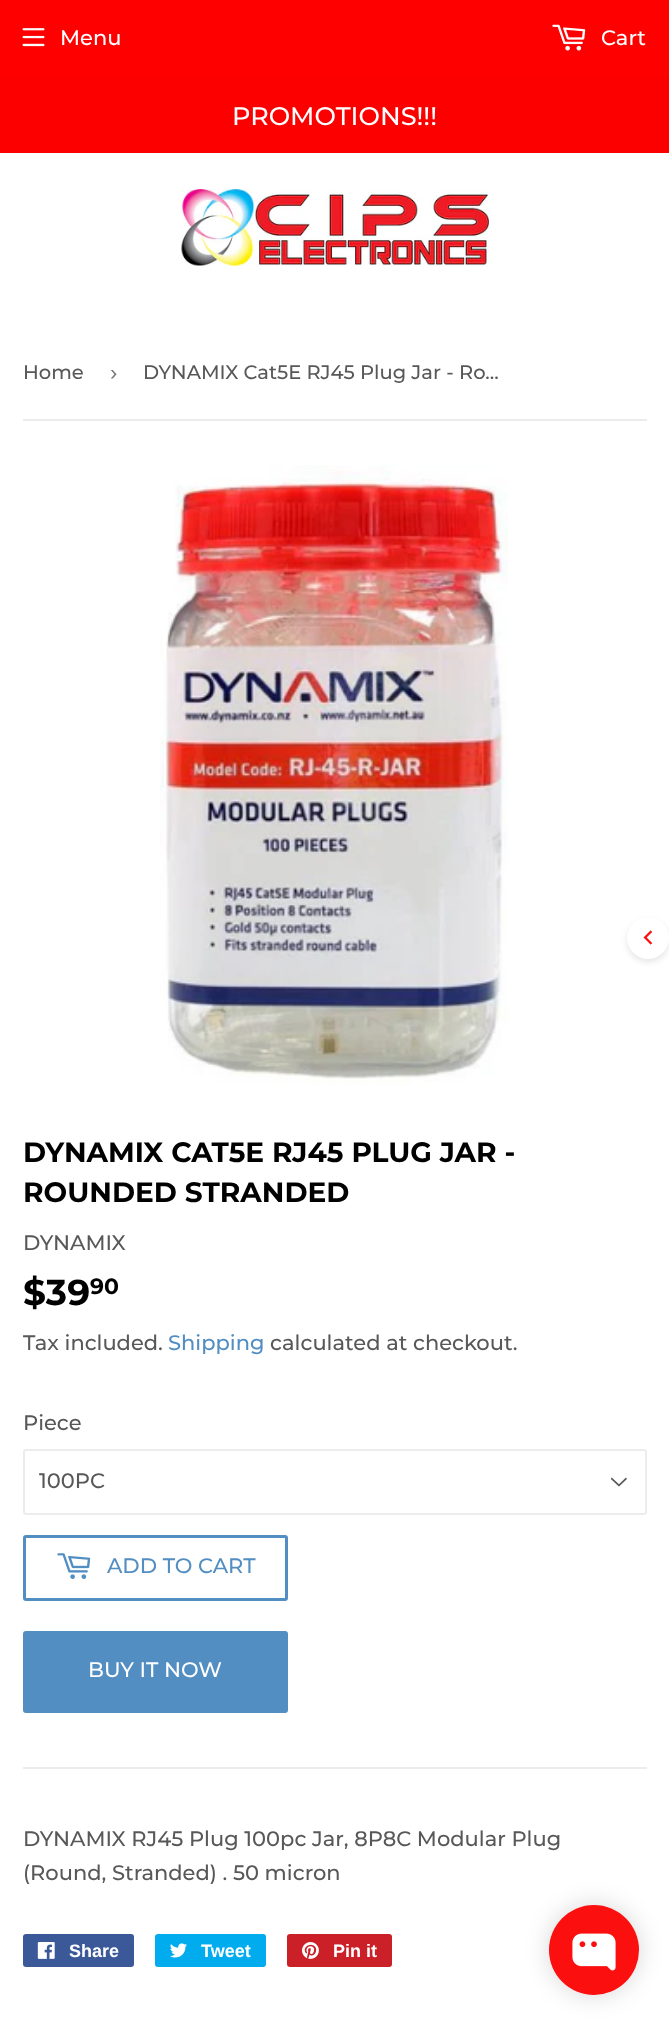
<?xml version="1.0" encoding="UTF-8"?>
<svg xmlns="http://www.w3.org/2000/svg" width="669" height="2024">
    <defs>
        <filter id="blur1" x="-50%" y="-200%" width="200%" height="500%"><feGaussianBlur stdDeviation="3"/></filter>
        <filter id="blur2" x="-50%" y="-200%" width="200%" height="500%"><feGaussianBlur stdDeviation="12"/></filter>
    </defs>
    <rect width="100%" height="100%" fill="#FFFFFF"/>
    <rect x="0" y="0" width="669" height="75" fill="#FF0000"/>
    <image x="22" y="28" width="23" height="19" href="img_01.png"/>
    <text x="60" y="45" font-family="Montserrat" font-size="21" font-weight="500" fill="#FFFFFF">Menu</text>
    <image x="552" y="24" width="34" height="27" href="img_02.png"/>
    <text x="601" y="45" font-family="Montserrat" font-size="21" font-weight="500" fill="#FFFFFF">Cart</text>
    <image x="181" y="189" width="308" height="77" href="img_03.png"/>
    <rect x="0" y="75" width="669" height="78" fill="#FC0000"/>
    <text x="232" y="125" font-family="Montserrat" font-size="25.5" font-weight="500" fill="#FFFFFF">PROMOTIONS!!!</text>
    <rect x="23" y="419" width="624" height="2" fill="#ECECEC"/>
    <text x="23" y="379" font-family="Montserrat" font-size="19.5" font-weight="500" fill="#585858">Home</text>
    <text x="110" y="380" font-family="Liberation Sans" font-size="22" fill="#767676">›</text>
    <text x="143" y="379" font-family="Montserrat" font-size="19.5" font-weight="500" fill="#585858">DYNAMIX Cat5E RJ45 Plug Jar - Ro…</text>
    <image x="160" y="465" width="348" height="620" href="img_04.png"/>
    <text font-family="Montserrat" font-size="28" font-weight="700" fill="#000000">
        <tspan x="23" y="1162">DYNAMIX CAT5E RJ45 PLUG JAR -</tspan>
        <tspan x="23" y="1202">ROUNDED STRANDED</tspan>
    </text>
    <text x="23" y="1250" font-family="Montserrat" font-size="21" font-weight="500" fill="#585858">DYNAMIX</text>
    <text x="23" y="1305" font-family="Montserrat" font-size="36" font-weight="700" fill="#000000">$39</text>
    <text x="90" y="1294" font-family="Montserrat" font-size="22" font-weight="700" fill="#000000">90</text>
    <text x="23" y="1350" font-family="Montserrat" font-size="21" font-weight="500" fill="#585858">Tax included.</text>
    <text x="168" y="1350" font-family="Montserrat" font-size="21" font-weight="500" fill="#528EC1">Shipping</text>
    <text x="270" y="1350" font-family="Montserrat" font-size="21" font-weight="500" fill="#585858">calculated at checkout.</text>
    <text x="23" y="1430" font-family="Montserrat" font-size="21" font-weight="500" fill="#585858">Piece</text>
    <image x="611" y="1477" width="16" height="10" href="img_05.png"/>
    <rect x="24" y="1450" width="622" height="64" rx="2" fill="none" stroke="#ECECEC" stroke-width="2"/>
    <text x="39" y="1488" font-family="Montserrat" font-size="21" font-weight="500" fill="#585858">100PC</text>
    <rect x="24.5" y="1536.5" width="262" height="63" rx="1.5" fill="none" stroke="#528EC1" stroke-width="3"/>
    <image x="57" y="1553" width="34" height="26" href="img_06.png"/>
    <text x="107" y="1573" font-family="Montserrat" font-size="21" font-weight="500" fill="#528EC1">ADD TO CART</text>
    <rect x="23" y="1631" width="265" height="82" rx="3" fill="#528EC1"/>
    <text x="88" y="1677" font-family="Montserrat" font-size="21" font-weight="500" fill="#FFFFFF">BUY IT NOW</text>
    <rect x="23" y="1767" width="624" height="2" fill="#ECECEC"/>
    <text font-family="Montserrat" font-size="21" font-weight="500" fill="#585858">
        <tspan x="23" y="1846">DYNAMIX RJ45 Plug 100pc Jar, 8P8C Modular Plug</tspan>
        <tspan x="23" y="1880">(Round, Stranded) . 50 micron</tspan>
    </text>
    <rect x="23" y="1934" width="111" height="33" rx="3" fill="#3B5998"/>
    <image x="37" y="1942" width="18" height="17" href="img_07.png"/>
    <text x="69" y="1957" font-family="Liberation Sans" font-size="18" font-weight="700" fill="#FFFFFF">Share</text>
    <rect x="155" y="1934" width="111" height="33" rx="3" fill="#00ACED"/>
    <image x="170" y="1943" width="17" height="15" href="img_08.png"/>
    <text x="201" y="1957" font-family="Liberation Sans" font-size="18" font-weight="700" fill="#FFFFFF">Tweet</text>
    <rect x="287" y="1934" width="105" height="33" rx="3" fill="#CB2027"/>
    <image x="302" y="1942" width="17" height="17" href="img_09.png"/>
    <text x="333" y="1957" font-family="Liberation Sans" font-size="18" font-weight="700" fill="#FFFFFF">Pin it</text>
    <rect x="627" y="920" width="42" height="42" rx="21" fill="#000000" fill-opacity="0.1" filter="url(#blur1)"/>
    <circle cx="648" cy="938" r="21" fill="#FFFFFF"/>
    <image x="643" y="930" width="10" height="15" href="img_10.png"/>
    <rect x="549" y="1905" width="90" height="90" rx="45" fill="#00122E" fill-opacity="0.16" filter="url(#blur2)"/>
    <circle cx="594" cy="1950" r="45" fill="#FB0F0F"/>
    <image x="572" y="1933" width="44" height="38" href="img_11.png"/>
</svg>
